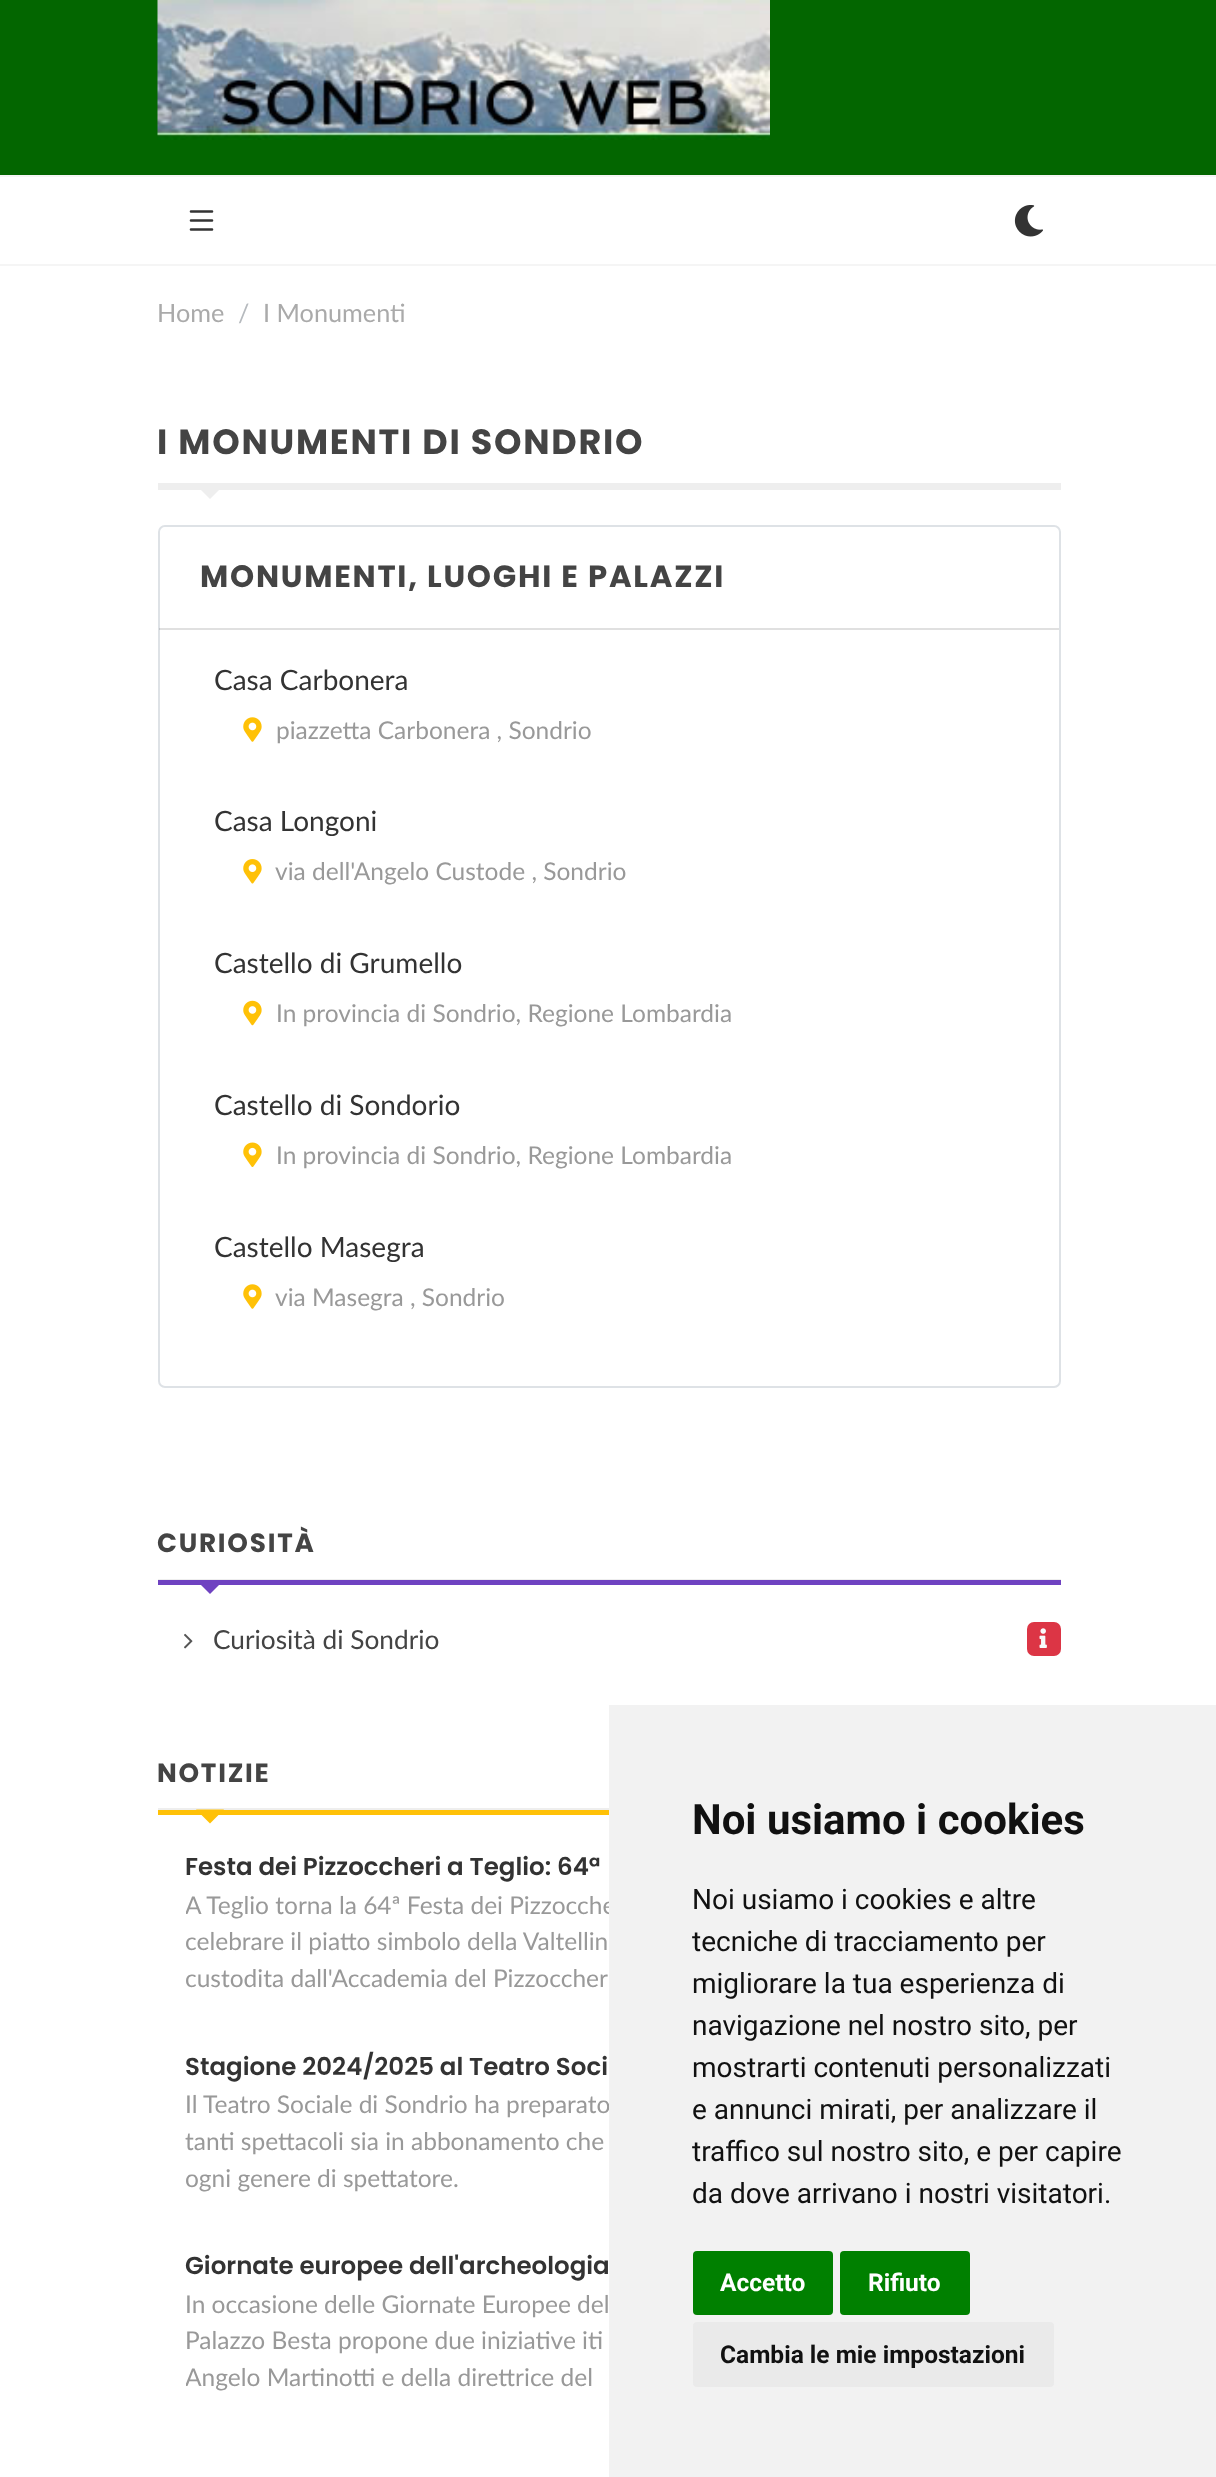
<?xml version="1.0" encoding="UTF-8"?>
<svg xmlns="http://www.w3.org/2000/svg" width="1216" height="2477">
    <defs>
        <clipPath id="clip1"><rect x="186" y="1887" width="875" height="110"/></clipPath>
        <clipPath id="clip2"><rect x="186" y="2086" width="875" height="110"/></clipPath>
        <clipPath id="clip3"><rect x="186" y="2286" width="875" height="110"/></clipPath>
    </defs>
    <rect width="100%" height="100%" fill="#FFFFFF"/>
    <rect x="0" y="264" width="1216" height="2" fill="#F5F5F5"/>
    <rect x="0" y="0" width="1216" height="175" fill="#036600"/>
    <image x="157" y="0" width="613" height="140" href="img_01.png"/>
    <rect x="0" y="175" width="1216" height="2" fill="#F5F5F5"/>
    <path d="M 191 211.5 H 212 M 191 220.5 H 212 M 212 229.5 H 191" fill="none" stroke="#333333" stroke-width="2.6" stroke-linecap="round"/>
    <image x="1014" y="205" width="29" height="32" href="img_02.png"/>
    <text x="157" y="322" font-family="Lato" font-size="25.25" fill="#AAAAAA">Home</text>
    <text x="238" y="322" font-family="Lato" font-size="25.25" fill="#B6BABE">/</text>
    <text x="263" y="322" font-family="Lato" font-size="25.25" fill="#AAAAAA">I Monumenti</text>
    <text x="157" y="454" font-family="Poppins" font-size="35" font-weight="700" letter-spacing="1.75" fill="#444444">I MONUMENTI DI SONDRIO</text>
    <rect x="158" y="483" width="903" height="7" fill="#EEEEEE"/>
    <path d="M 196 485 H 224 L 210 499 Z" fill="#EEEEEE"/>
    <rect x="159" y="526" width="901" height="861" rx="6" fill="none" stroke="#DEE2E6" stroke-width="2"/>
    <rect x="159" y="628" width="900" height="2" fill="#000000" fill-opacity="0.12"/>
    <text x="200" y="587" font-family="Poppins" font-size="30.75" font-weight="700" letter-spacing="1.75" fill="#444444">MONUMENTI, LUOGHI E PALAZZI</text>
    <text x="214" y="690" font-family="Lato" font-size="28" fill="#333333">Casa Carbonera</text>
    <image x="243" y="717" width="19" height="25" href="img_03.png"/>
    <text x="276" y="739" font-family="Lato" font-size="24.5" fill="#999999">piazzetta Carbonera , Sondrio</text>
    <text x="214" y="831" font-family="Lato" font-size="28" fill="#333333">Casa Longoni</text>
    <image x="243" y="859" width="19" height="25" href="img_04.png"/>
    <text x="275" y="880" font-family="Lato" font-size="24.5" fill="#999999">via dell'Angelo Custode , Sondrio</text>
    <text x="214" y="973" font-family="Lato" font-size="28" fill="#333333">Castello di Grumello</text>
    <image x="243" y="1000" width="19" height="26" href="img_05.png"/>
    <text x="276" y="1022" font-family="Lato" font-size="24.5" fill="#999999">In provincia di Sondrio, Regione Lombardia</text>
    <text x="214" y="1115" font-family="Lato" font-size="28" fill="#333333">Castello di Sondorio</text>
    <image x="243" y="1142" width="19" height="25" href="img_06.png"/>
    <text x="276" y="1164" font-family="Lato" font-size="24.5" fill="#999999">In provincia di Sondrio, Regione Lombardia</text>
    <text x="214" y="1257" font-family="Lato" font-size="28" fill="#333333">Castello Masegra</text>
    <image x="243" y="1284" width="19" height="25" href="img_03.png"/>
    <text x="275" y="1306" font-family="Lato" font-size="24.5" fill="#999999">via Masegra , Sondrio</text>
    <text x="157" y="1552" font-family="Poppins" font-size="26.25" font-weight="700" letter-spacing="1.75" fill="#444444">CURIOSITÀ</text>
    <rect x="158" y="1579" width="903" height="1" fill="#EEEEEE"/>
    <rect x="158" y="1580" width="903" height="5" fill="#6F42C1"/>
    <path d="M 196 1580 H 224 L 210 1594 Z" fill="#6F42C1"/>
    <image x="184" y="1633" width="9" height="16" href="img_07.png"/>
    <text x="213" y="1649" font-family="Lato" font-size="26.25" fill="#444444">Curiosità di Sondrio</text>
    <rect x="1027" y="1622" width="34" height="34" rx="7" fill="#DC3545"/>
    <image x="1039" y="1628" width="8" height="20" href="img_08.png"/>
    <text x="157" y="1782" font-family="Poppins" font-size="26.25" font-weight="700" letter-spacing="1.75" fill="#444444">NOTIZIE</text>
    <rect x="158" y="1808" width="451" height="2" fill="#EEEEEE"/>
    <rect x="158" y="1810" width="451" height="5" fill="#FFC107"/>
    <path d="M 196 1809.5 H 224 L 210 1823.5 Z" fill="#FFC107"/>
    <text x="185" y="1875" font-family="Poppins" font-size="24.5" font-weight="600" fill="#333333">Festa dei Pizzoccheri a Teglio: 64ª</text>
    <g clip-path="url(#clip1)">
        <text font-family="Lato" font-size="24.5" fill="#999999">
            <tspan x="185" y="1914">A Teglio torna la 64ª Festa dei Pizzocche</tspan>
            <tspan x="185" y="1950">celebrare il piatto simbolo della Valtellin</tspan>
            <tspan x="185" y="1987">custodita dall'Accademia del Pizzoccher</tspan>
        </text>
    </g>
    <text x="185" y="2075" font-family="Poppins" font-size="24.5" font-weight="600" fill="#333333">Stagione 2024/2025 al Teatro Soci</text>
    <text font-family="Lato" font-size="24.5" fill="#999999">
        <tspan x="185" y="2113">Il Teatro Sociale di Sondrio ha preparato</tspan>
        <tspan x="185" y="2150">tanti spettacoli sia in abbonamento che</tspan>
    </text>
    <g clip-path="url(#clip2)">
        <text x="185" y="2187" font-family="Lato" font-size="24.5" fill="#999999">ogni genere di spettatore.</text>
    </g>
    <text x="185" y="2274" font-family="Poppins" font-size="24.5" font-weight="600" fill="#333333">Giornate europee dell'archeologia</text>
    <text font-family="Lato" font-size="24.5" fill="#999999">
        <tspan x="185" y="2313">In occasione delle Giornate Europee del</tspan>
        <tspan x="185" y="2349">Palazzo Besta propone due iniziative iti</tspan>
    </text>
    <g clip-path="url(#clip3)">
        <text x="185" y="2386" font-family="Lato" font-size="24.5" fill="#999999">Angelo Martinotti e della direttrice del</text>
    </g>
    <rect x="609" y="1705" width="607" height="772" fill="#F2F2F2"/>
    <text x="692" y="1834" font-family="Roboto" font-size="42" font-weight="700" fill="#111111">Noi usiamo i cookies</text>
    <text font-family="Roboto" font-size="28" fill="#111111">
        <tspan x="692" y="1909">Noi usiamo i cookies e altre</tspan>
        <tspan x="692" y="1951">tecniche di tracciamento per</tspan>
        <tspan x="692" y="1993">migliorare la tua esperienza di</tspan>
        <tspan x="692" y="2035">navigazione nel nostro sito, per</tspan>
        <tspan x="692" y="2077">mostrarti contenuti personalizzati</tspan>
        <tspan x="692" y="2119">e annunci mirati, per analizzare il</tspan>
        <tspan x="692" y="2161">traffico sul nostro sito, e per capire</tspan>
        <tspan x="692" y="2203">da dove arrivano i nostri visitatori.</tspan>
    </text>
    <rect x="693" y="2251" width="140" height="64" rx="4" fill="#008000"/>
    <text x="720" y="2291" font-family="Roboto" font-size="24.5" font-weight="700" fill="#FFFFFF">Accetto</text>
    <rect x="840" y="2251" width="130" height="64" rx="4" fill="#008000"/>
    <text x="868" y="2291" font-family="Roboto" font-size="24.5" font-weight="700" fill="#FFFFFF">Rifiuto</text>
    <rect x="693" y="2322" width="361" height="65" rx="4" fill="#EAEAEA"/>
    <text x="720" y="2363" font-family="Roboto" font-size="24.5" font-weight="700" fill="#111111">Cambia le mie impostazioni</text>
</svg>
